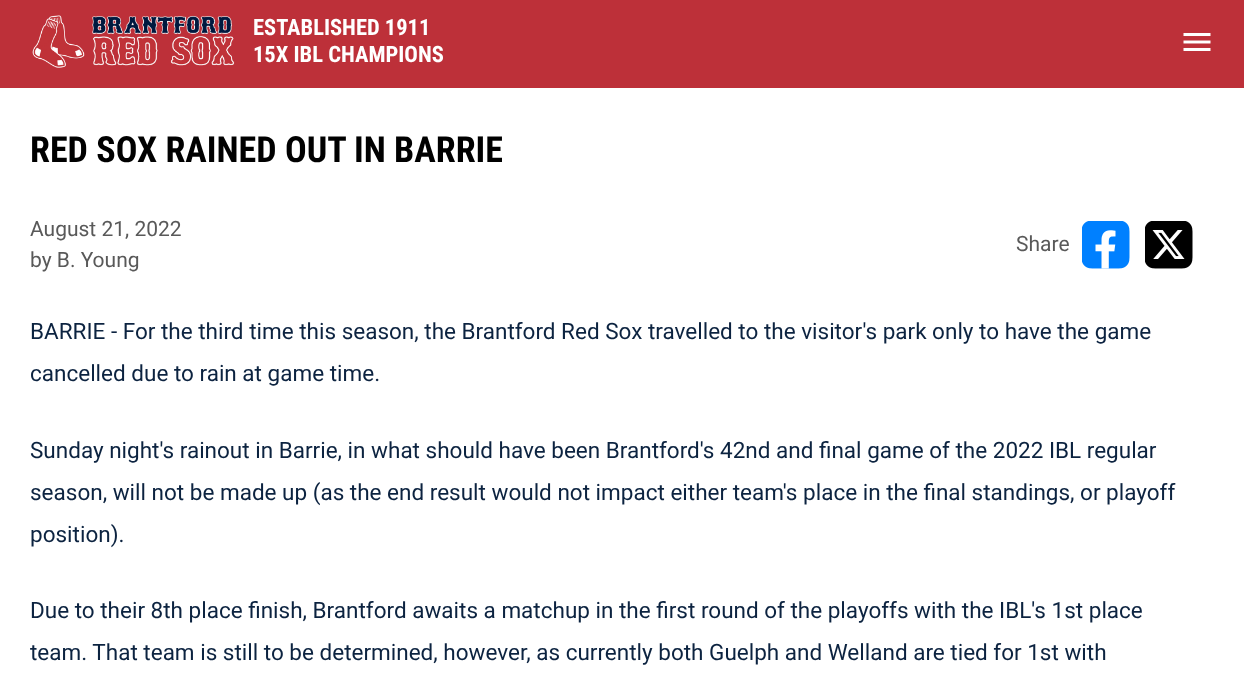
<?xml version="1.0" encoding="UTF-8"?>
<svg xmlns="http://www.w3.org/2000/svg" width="1244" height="689">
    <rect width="100%" height="100%" fill="#FFFFFF"/>
    <rect x="0" y="0" width="1244" height="88" fill="#BD3039"/>
    <image x="32" y="15" width="203" height="53" href="img_01.png"/>
    <text font-family="Roboto Condensed" font-size="22.5" font-weight="700" fill="#FFFFFF">
        <tspan x="253" y="35">ESTABLISHED 1911</tspan>
        <tspan x="253" y="62">15X IBL CHAMPIONS</tspan>
    </text>
    <image x="1183" y="33" width="28" height="18" href="img_02.png"/>
    <text x="30" y="162" font-family="Roboto Condensed" font-size="36" font-weight="700" fill="#000000">RED SOX RAINED OUT IN BARRIE</text>
    <text font-family="Roboto" font-size="21" fill="#595959">
        <tspan x="30" y="236">August 21, 2022</tspan>
        <tspan x="30" y="267">by B. Young</tspan>
    </text>
    <text x="1016" y="251" font-family="Roboto" font-size="21" fill="#595959">Share</text>
    <image x="1082" y="221" width="48" height="48" href="img_03.png"/>
    <image x="1145" y="221" width="48" height="48" href="img_04.png"/>
    <text font-family="Roboto" font-size="22.5" fill="#0C2340">
        <tspan x="30" y="339">BARRIE - For the third time this season, the Brantford Red Sox travelled to the visitor's park only to have the game</tspan>
        <tspan x="30" y="381">cancelled due to rain at game time.</tspan>
    </text>
    <text font-family="Roboto" font-size="22.5" fill="#0C2340">
        <tspan x="30" y="458">Sunday night's rainout in Barrie, in what should have been Brantford's 42nd and final game of the 2022 IBL regular</tspan>
        <tspan x="30" y="500">season, will not be made up (as the end result would not impact either team's place in the final standings, or playoff</tspan>
        <tspan x="30" y="542">position).</tspan>
    </text>
    <text font-family="Roboto" font-size="22.5" fill="#0C2340">
        <tspan x="30" y="618">Due to their 8th place finish, Brantford awaits a matchup in the first round of the playoffs with the IBL's 1st place</tspan>
        <tspan x="30" y="660">team. That team is still to be determined, however, as currently both Guelph and Welland are tied for 1st with</tspan>
    </text>
</svg>
